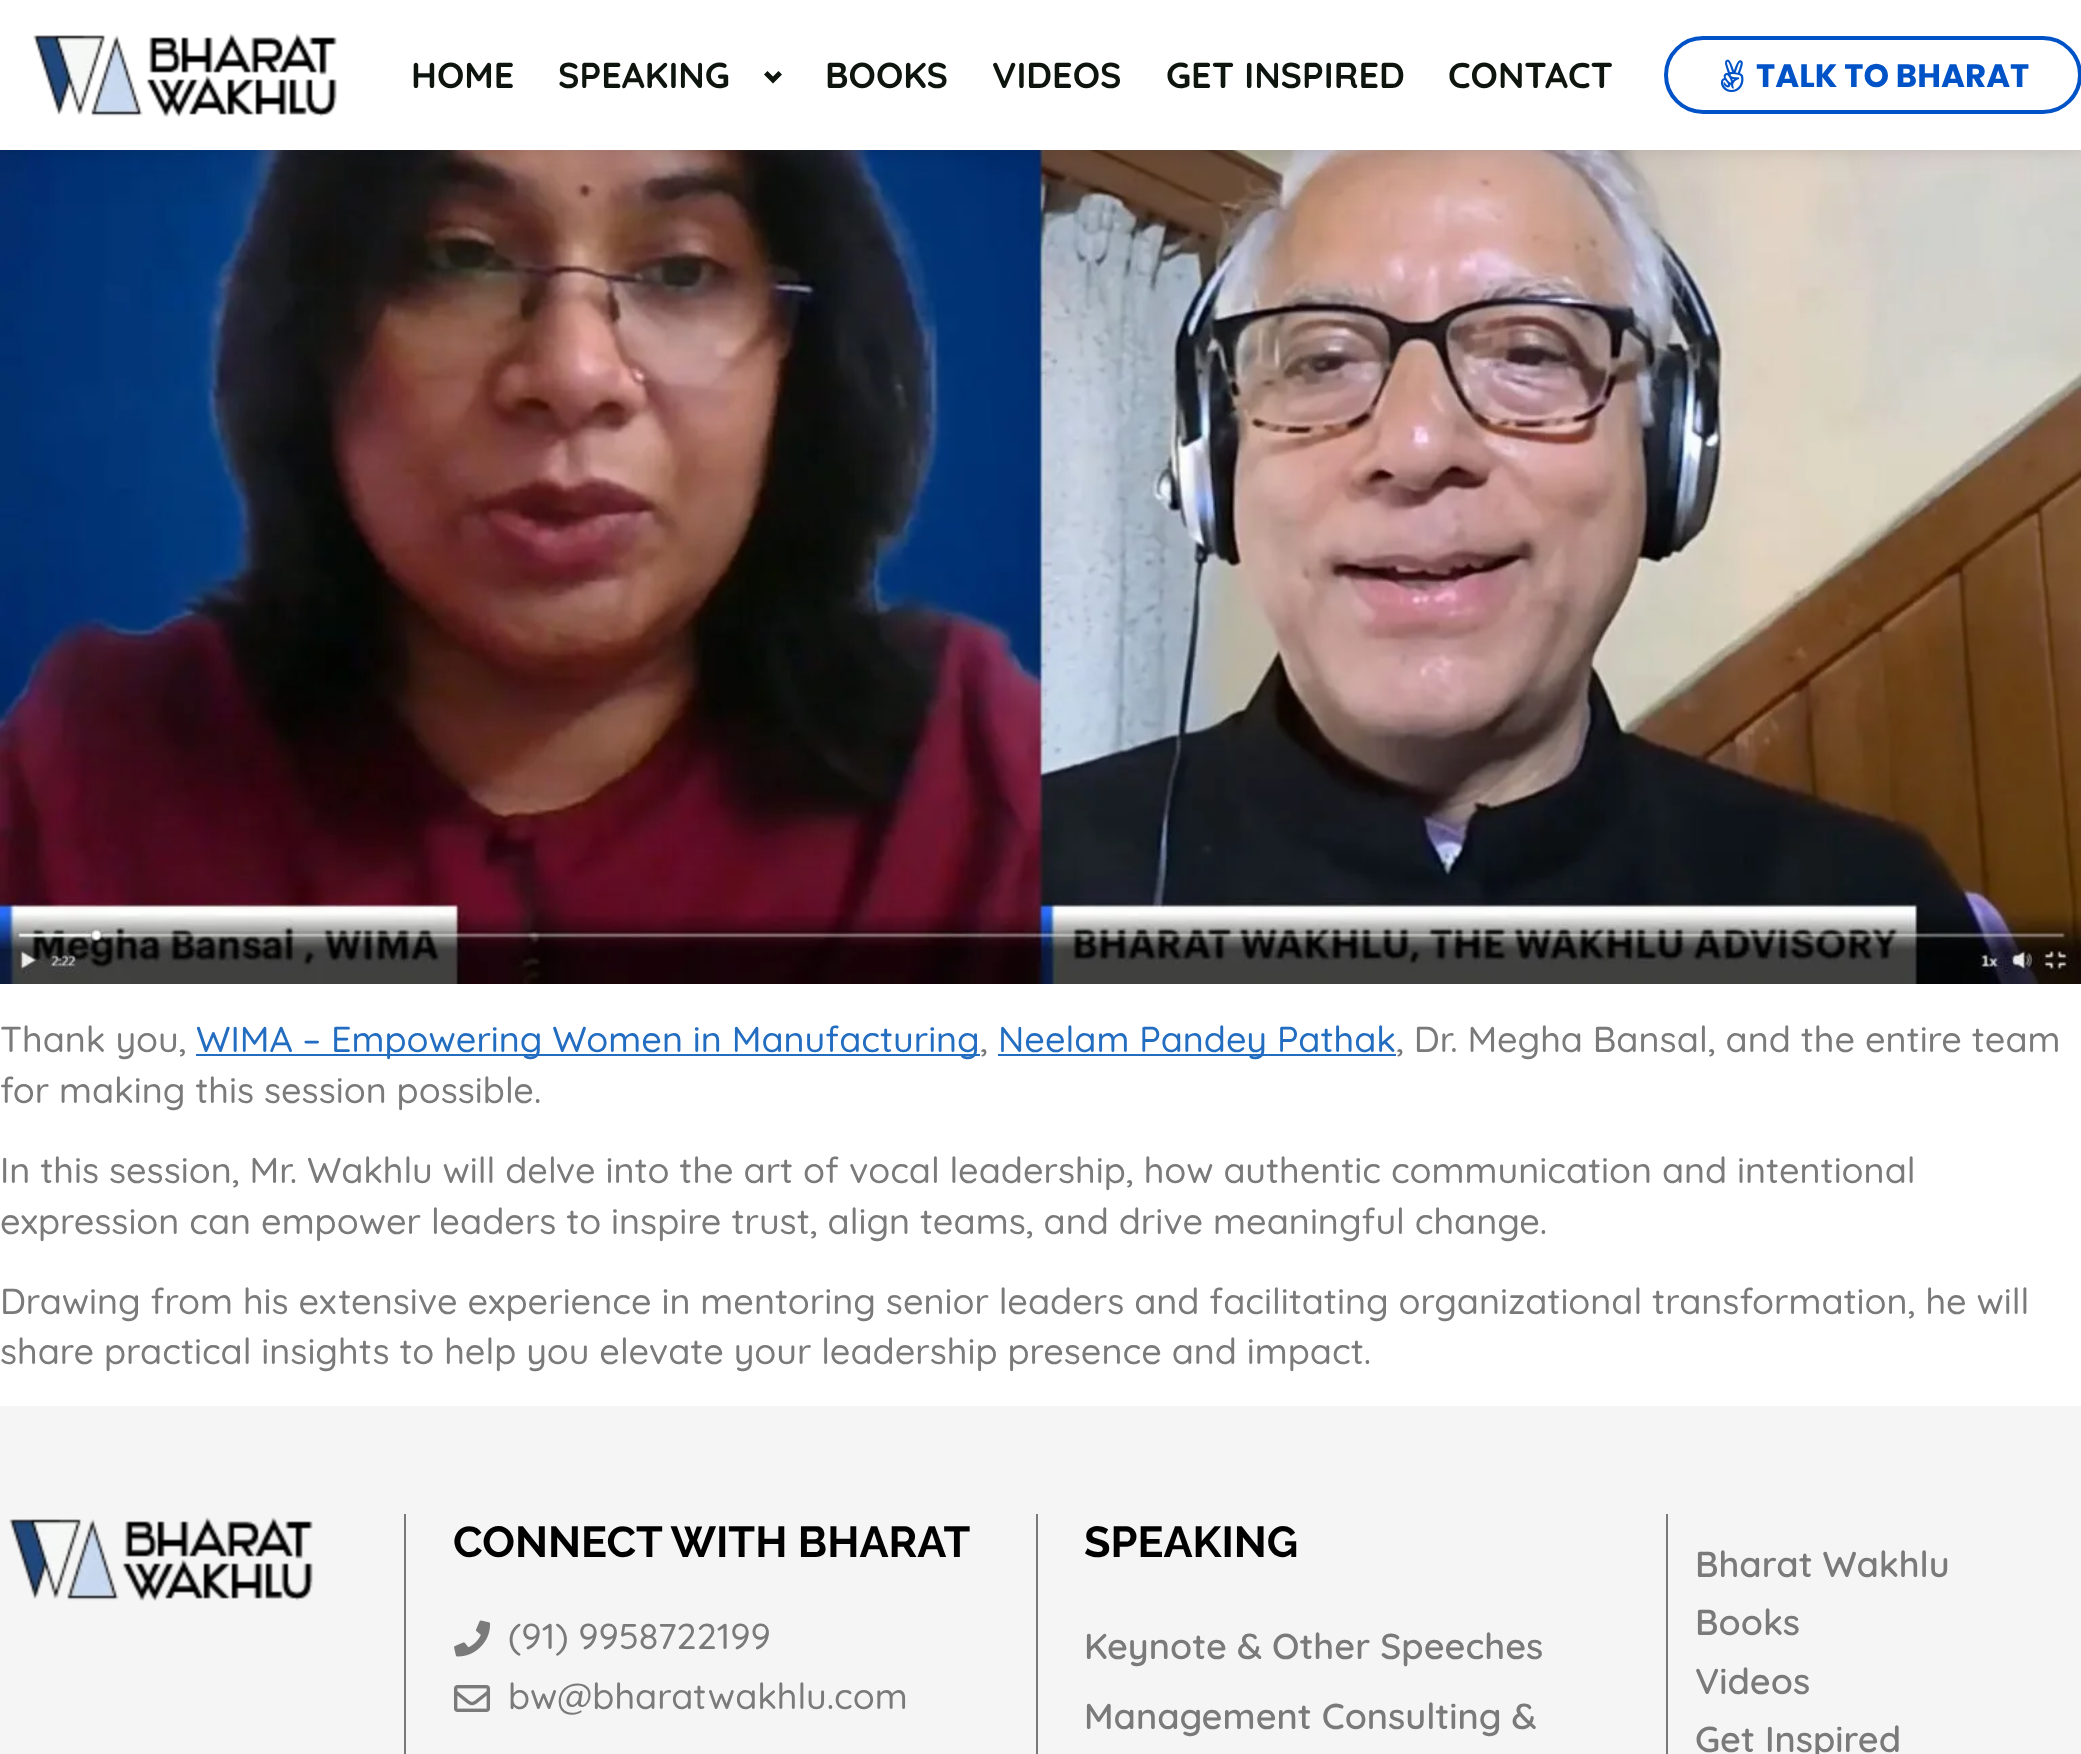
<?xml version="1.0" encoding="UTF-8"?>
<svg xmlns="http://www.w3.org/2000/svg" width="2081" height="1754">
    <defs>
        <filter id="blur1" x="-50%" y="-200%" width="200%" height="500%"><feGaussianBlur stdDeviation="10"/></filter>
    </defs>
    <rect width="100%" height="100%" fill="#FFFFFF"/>
    <image x="0" y="150" width="2081" height="834" href="img_03.png"/>
    <rect x="0" y="0" width="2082" height="150" fill="#000000" fill-opacity="0.12" filter="url(#blur1)"/>
    <rect x="0" y="0" width="2081" height="150" fill="#FFFFFF"/>
    <image x="33" y="33" width="304" height="84" href="img_01.png"/>
    <text x="411" y="88" font-family="Quicksand" font-size="36" font-weight="700" fill="#0E150E">HOME</text>
    <text x="558" y="88" font-family="Quicksand" font-size="36" font-weight="700" fill="#0E150E">SPEAKING</text>
    <path d="M 782 74.5 L 778.5 71 L 773 76.5 L 767.5 71 L 764 74.5 L 773 83.5 Z" fill="#0E150E"/>
    <text x="825" y="88" font-family="Quicksand" font-size="36" font-weight="700" fill="#0E150E">BOOKS</text>
    <text x="992" y="88" font-family="Quicksand" font-size="36" font-weight="700" fill="#0E150E">VIDEOS</text>
    <text x="1166" y="88" font-family="Quicksand" font-size="36" font-weight="700" fill="#0E150E">GET INSPIRED</text>
    <text x="1448" y="88" font-family="Quicksand" font-size="36" font-weight="700" fill="#0E150E">CONTACT</text>
    <rect x="1666" y="38" width="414" height="74" rx="37" fill="none" stroke="#0053C7" stroke-width="4"/>
    <image x="1720" y="59" width="24" height="34" href="img_02.png"/>
    <text x="1756" y="87" font-family="Poppins" font-size="32.5" font-weight="700" fill="#0053C7">TALK TO BHARAT</text>
    <text x="0" y="1052" font-family="Quicksand" font-size="36" font-weight="500" fill="#7A7A7A">Thank you,</text>
    <rect x="196" y="1054" width="784" height="2" fill="#236DC1"/>
    <text x="196" y="1052" font-family="Quicksand" font-size="36" font-weight="500" fill="#236DC1">WIMA – Empowering Women in Manufacturing</text>
    <text x="980" y="1052" font-family="Quicksand" font-size="36" font-weight="500" fill="#7A7A7A">,</text>
    <rect x="998" y="1054" width="398" height="2" fill="#236DC1"/>
    <text x="998" y="1052" font-family="Quicksand" font-size="36" font-weight="500" fill="#236DC1">Neelam Pandey Pathak</text>
    <text x="1396" y="1052" font-family="Quicksand" font-size="36" font-weight="500" fill="#7A7A7A">, Dr. Megha Bansal, and the entire team</text>
    <text x="0" y="1103" font-family="Quicksand" font-size="36" font-weight="500" fill="#7A7A7A">for making this session possible.</text>
    <text font-family="Quicksand" font-size="36" font-weight="500" fill="#7A7A7A">
        <tspan x="0" y="1183">In this session, Mr. Wakhlu will delve into the art of vocal leadership, how authentic communication and intentional</tspan>
        <tspan x="0" y="1234">expression can empower leaders to inspire trust, align teams, and drive meaningful change.</tspan>
    </text>
    <text font-family="Quicksand" font-size="36" font-weight="500" fill="#7A7A7A">
        <tspan x="0" y="1314">Drawing from his extensive experience in mentoring senior leaders and facilitating organizational transformation, he will</tspan>
        <tspan x="0" y="1364">share practical insights to help you elevate your leadership presence and impact.</tspan>
    </text>
    <rect x="0" y="1406" width="2081" height="348" fill="#F5F5F5"/>
    <rect x="404" y="1514" width="2" height="240" fill="#7A7A7A"/>
    <image x="9" y="1517" width="304" height="84" href="img_04.png"/>
    <rect x="1036" y="1514" width="2" height="240" fill="#7A7A7A"/>
    <text x="453" y="1557" font-family="Raleway" font-size="43.25" font-weight="700" fill="#000000">CONNECT WITH BHARAT</text>
    <image x="454" y="1620" width="37" height="37" href="img_05.png"/>
    <text x="508" y="1649" font-family="Quicksand" font-size="36" font-weight="500" fill="#7A7A7A">(91) 9958722199</text>
    <image x="454" y="1685" width="36" height="27" href="img_06.png"/>
    <text x="508" y="1709" font-family="Quicksand" font-size="36" font-weight="500" fill="#7A7A7A">bw@bharatwakhlu.com</text>
    <rect x="1666" y="1514" width="2" height="240" fill="#7A7A7A"/>
    <text x="1084" y="1557" font-family="Raleway" font-size="43.25" font-weight="700" fill="#000000">SPEAKING</text>
    <text font-family="Quicksand" font-size="36" font-weight="600" fill="#7A7A7A">
        <tspan x="1084" y="1659">Keynote &amp; Other Speeches</tspan>
        <tspan x="1084" y="1729">Management Consulting &amp;</tspan>
    </text>
    <text font-family="Quicksand" font-size="36" font-weight="600" fill="#7A7A7A">
        <tspan x="1695" y="1577">Bharat Wakhlu</tspan>
        <tspan x="1695" y="1635">Books</tspan>
        <tspan x="1695" y="1694">Videos</tspan>
        <tspan x="1695" y="1752">Get Inspired</tspan>
    </text>
</svg>
